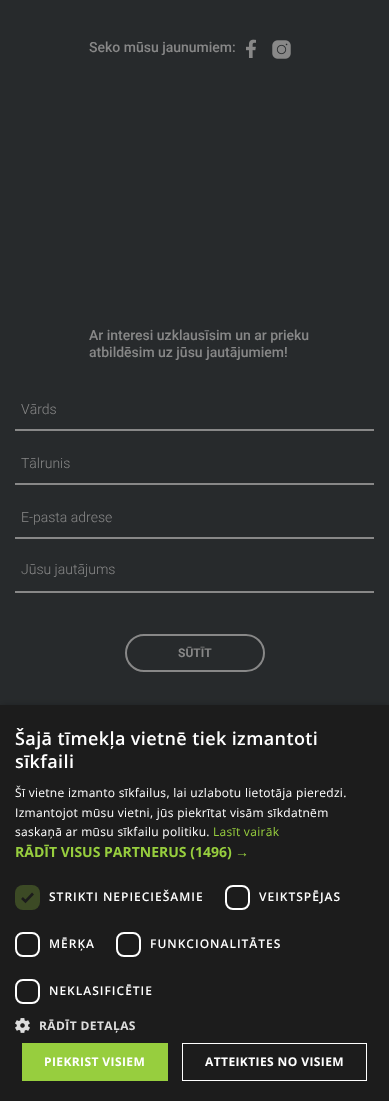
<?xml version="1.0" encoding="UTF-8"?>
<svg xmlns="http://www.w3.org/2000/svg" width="389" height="1101">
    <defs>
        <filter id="blur1" x="-50%" y="-200%" width="200%" height="500%"><feGaussianBlur stdDeviation="4"/></filter>
    </defs>
    <rect width="100%" height="100%" fill="#272A2C"/>
    <text x="89" y="52" font-family="Roboto" font-size="14" font-weight="500" fill="#888888">Seko mūsu jaunumiem:</text>
    <image x="246" y="39" width="10" height="19" href="img_01.png"/>
    <image x="272" y="40" width="19" height="19" href="img_02.png"/>
    <text font-family="Roboto" font-size="14" font-weight="500" fill="#888888">
        <tspan x="89" y="340">Ar interesi uzklausīsim un ar prieku</tspan>
        <tspan x="89" y="357">atbildēsim uz jūsu jautājumiem!</tspan>
    </text>
    <rect x="15" y="429" width="359" height="2" fill="#888888"/>
    <text x="21" y="414" font-family="Roboto" font-size="14" font-weight="300" fill="#888888">Vārds</text>
    <rect x="15" y="483" width="359" height="2" fill="#888888"/>
    <text x="21" y="468" font-family="Roboto" font-size="14" font-weight="300" fill="#888888">Tālrunis</text>
    <rect x="15" y="537" width="359" height="2" fill="#888888"/>
    <text x="21" y="522" font-family="Roboto" font-size="14" font-weight="300" fill="#888888">E-pasta adrese</text>
    <rect x="15" y="591" width="359" height="2" fill="#888888"/>
    <text x="21" y="574" font-family="Roboto" font-size="14" font-weight="300" fill="#888888">Jūsu jautājums</text>
    <rect x="126" y="635" width="138" height="36" rx="18" fill="none" stroke="#888888" stroke-width="2"/>
    <text x="178" y="657" font-family="Roboto" font-size="12" font-weight="700" fill="#888888">SŪTĪT</text>
    <rect x="1" y="707" width="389" height="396" fill="#000000" fill-opacity="0.35" filter="url(#blur1)"/>
    <rect x="0" y="705" width="389" height="396" fill="#1C1C1C"/>
    <text font-family="Open Sans" font-size="18" font-weight="600" letter-spacing="0.4" fill="#FFFFFF">
        <tspan x="15" y="745">Šajā tīmekļa vietnē tiek izmantoti</tspan>
        <tspan x="15" y="768">sīkfaili</tspan>
    </text>
    <text font-family="Open Sans" font-size="12" letter-spacing="0.3" fill="#FFFFFF">
        <tspan x="15" y="797">Šī vietne izmanto sīkfailus, lai uzlabotu lietotāja pieredzi.</tspan>
        <tspan x="15" y="817">Izmantojot mūsu vietni, jūs piekrītat visām sīkdatnēm</tspan>
        <tspan x="15" y="836">saskaņā ar mūsu sīkfailu politiku.</tspan>
    </text>
    <text x="213" y="836" font-family="Open Sans" font-size="12" letter-spacing="0.3" fill="#97CE3E">Lasīt vairāk</text>
    <text x="15" y="857" font-family="Open Sans" font-size="14" font-weight="700" fill="#97CE3E">RĀDĪT VISUS PARTNERUS (1496)</text>
    <text x="235" y="857" font-family="Liberation Sans" font-size="14" font-weight="700" fill="#97CE3E">→</text>
    <rect x="15" y="885" width="25" height="25" rx="8" fill="#3C4A25"/>
    <path d="M 22 898 L 25.5 901.5 L 33 893.5" fill="none" stroke="#1C1C1C" stroke-width="2.6"/>
    <text x="49" y="901" font-family="Open Sans" font-size="12" font-weight="600" letter-spacing="1" fill="#FFFFFF">STRIKTI NEPIECIEŠAMIE</text>
    <rect x="226" y="886" width="23" height="23" rx="7" fill="none" stroke="#FFFFFF" stroke-width="2"/>
    <text x="259" y="901" font-family="Open Sans" font-size="12" font-weight="600" letter-spacing="1" fill="#FFFFFF">VEIKTSPĒJAS</text>
    <rect x="16" y="933" width="23" height="23" rx="7" fill="none" stroke="#FFFFFF" stroke-width="2"/>
    <text x="49" y="948" font-family="Open Sans" font-size="12" font-weight="600" letter-spacing="1" fill="#FFFFFF">MĒRĶA</text>
    <rect x="117" y="933" width="23" height="23" rx="7" fill="none" stroke="#FFFFFF" stroke-width="2"/>
    <text x="150" y="948" font-family="Open Sans" font-size="12" font-weight="600" letter-spacing="1" fill="#FFFFFF">FUNKCIONALITĀTES</text>
    <rect x="16" y="980" width="23" height="23" rx="7" fill="none" stroke="#FFFFFF" stroke-width="2"/>
    <text x="49" y="995" font-family="Open Sans" font-size="12" font-weight="600" letter-spacing="1" fill="#FFFFFF">NEKLASIFICĒTIE</text>
    <image x="15" y="1018" width="15" height="15" href="img_03.png"/>
    <text x="39" y="1030" font-family="Open Sans" font-size="12" font-weight="700" letter-spacing="0.4" fill="#DDDDDD">RĀDĪT DETAĻAS</text>
    <rect x="22" y="1043" width="146" height="38" fill="#97CE3E"/>
    <text x="44" y="1066" font-family="Open Sans" font-size="12" font-weight="700" letter-spacing="0.4" fill="#FFFFFF">PIEKRIST VISIEM</text>
    <rect x="182.5" y="1043.5" width="184" height="37" fill="none" stroke="#FFFFFF"/>
    <text x="205" y="1066" font-family="Open Sans" font-size="12" font-weight="700" letter-spacing="0.4" fill="#FFFFFF">ATTEIKTIES NO VISIEM</text>
</svg>
